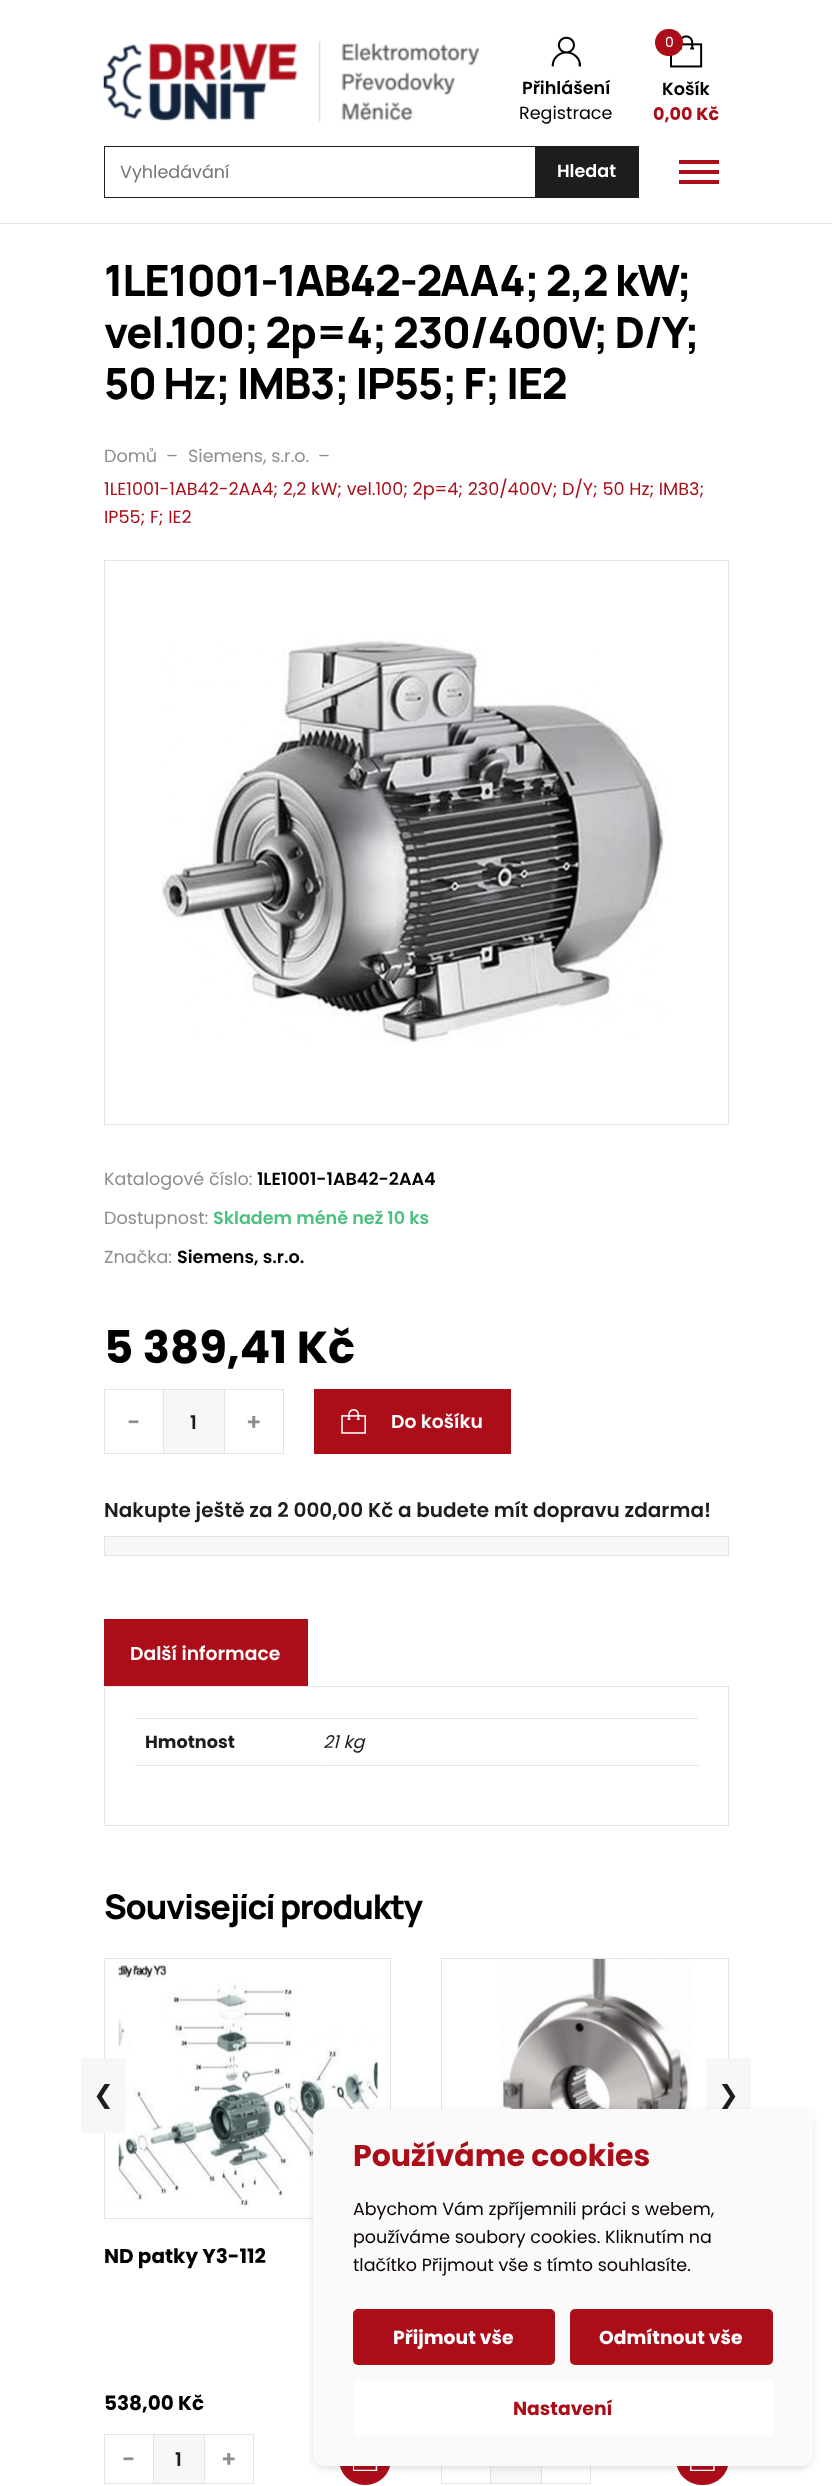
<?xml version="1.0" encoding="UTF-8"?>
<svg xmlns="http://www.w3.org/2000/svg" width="832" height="2486">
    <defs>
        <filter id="blur1" x="-50%" y="-200%" width="200%" height="500%"><feGaussianBlur stdDeviation="5"/></filter>
    </defs>
    <rect width="100%" height="100%" fill="#FFFFFF"/>
    <rect x="135" y="1765" width="189" height="1" fill="#E6E6E6"/>
    <rect x="0" y="223" width="832" height="1" fill="#E3E3E3"/>
    <image x="103" y="41" width="376" height="81" href="img_01.png"/>
    <image x="551" y="36" width="30" height="31" href="img_02.png"/>
    <text x="522" y="94" font-family="Poppins" font-size="17.6" font-weight="600" fill="#000000">Přihlášení</text>
    <text x="519" y="119" font-family="Poppins" font-size="17.6" fill="#000000">Registrace</text>
    <image x="670" y="35" width="33" height="33" href="img_03.png"/>
    <rect x="655" y="29" width="28" height="27" rx="13.5" fill="#AB0D19"/>
    <text x="665" y="47" font-family="Poppins" font-size="14" fill="#FFFFFF">0</text>
    <text x="662" y="95" font-family="Poppins" font-size="17.6" font-weight="600" fill="#000000">Košík</text>
    <text x="653" y="120" font-family="Poppins" font-size="17.6" font-weight="700" fill="#AB0D19">0,00 Kč</text>
    <rect x="104.5" y="146.5" width="431" height="51" fill="none" stroke="#1D1D1D"/>
    <text x="120" y="178" font-family="Poppins" font-size="17.6" fill="#757575">Vyhledávání</text>
    <rect x="536" y="146" width="103" height="52" fill="#1D1D1D"/>
    <text x="557" y="177" font-family="Poppins" font-size="17.6" font-weight="600" fill="#FFFFFF">Hledat</text>
    <rect x="679" y="160" width="40" height="4" fill="#AB0D19"/>
    <rect x="679" y="170" width="40" height="4" fill="#AB0D19"/>
    <rect x="679" y="180" width="40" height="4" fill="#AB0D19"/>
    <text font-family="Manrope" font-size="43" font-weight="200" letter-spacing="-1.25" fill="#000000">
        <tspan x="104" y="296">1LE1001-1AB42-2AA4; 2,2 kW;</tspan>
        <tspan x="104" y="348">vel.100; 2p=4; 230/400V; D/Y;</tspan>
        <tspan x="104" y="399">50 Hz; IMB3; IP55; F; IE2</tspan>
    </text>
    <text x="104" y="462" font-family="Poppins" font-size="17.6" fill="#8E8E8E">Domů</text>
    <text x="166" y="462" font-family="Poppins" font-size="17.6" fill="#8E8E8E">–</text>
    <text x="188" y="462" font-family="Poppins" font-size="17.6" fill="#8E8E8E">Siemens, s.r.o.</text>
    <text x="318" y="462" font-family="Poppins" font-size="17.6" fill="#8E8E8E">–</text>
    <text font-family="Poppins" font-size="17.6" fill="#AB0D19">
        <tspan x="104" y="495">1LE1001-1AB42-2AA4; 2,2 kW; vel.100; 2p=4; 230/400V; D/Y; 50 Hz; IMB3;</tspan>
        <tspan x="104" y="523">IP55; F; IE2</tspan>
    </text>
    <rect x="104.5" y="560.5" width="624" height="564" fill="none" stroke="#E3E3E3"/>
    <image x="161" y="639" width="505" height="404" href="img_04.png"/>
    <text x="104" y="1185" font-family="Poppins" font-size="17.6" fill="#8E8E8E">Katalogové číslo:</text>
    <text x="257" y="1185" font-family="Poppins" font-size="17.6" font-weight="600" fill="#000000">1LE1001-1AB42-2AA4</text>
    <text x="104" y="1224" font-family="Poppins" font-size="17.6" fill="#8E8E8E">Dostupnost:</text>
    <text x="213" y="1224" font-family="Poppins" font-size="17.6" font-weight="600" fill="#4CC07F">Skladem méně než 10 ks</text>
    <text x="104" y="1263" font-family="Poppins" font-size="17.6" fill="#8E8E8E">Značka:</text>
    <text x="177" y="1263" font-family="Poppins" font-size="17.6" font-weight="600" fill="#000000">Siemens, s.r.o.</text>
    <text x="104" y="1363" font-family="Poppins" font-size="45" font-weight="700" fill="#000000">5 389,41 Kč</text>
    <rect x="104.5" y="1389.5" width="59" height="64" fill="none" stroke="#E3E3E3"/>
    <text x="127" y="1430" font-family="Poppins" font-size="23" font-weight="600" fill="#8E8E8E">-</text>
    <rect x="164" y="1390" width="60" height="63" fill="#F7F7F7"/>
    <rect x="164" y="1389" width="60" height="1" fill="#E3E3E3"/>
    <rect x="164" y="1453" width="60" height="1" fill="#E3E3E3"/>
    <text x="190" y="1429" font-family="Poppins" font-size="18.75" font-weight="600" fill="#1D1D1D">1</text>
    <rect x="224.5" y="1389.5" width="59" height="64" fill="none" stroke="#E3E3E3"/>
    <text x="246" y="1430" font-family="Poppins" font-size="23" font-weight="600" fill="#8E8E8E">+</text>
    <rect x="314" y="1389" width="197" height="65" fill="#AB0D19"/>
    <image x="341" y="1409" width="25" height="25" href="img_05.png"/>
    <text x="391" y="1428" font-family="Poppins" font-size="18.75" font-weight="600" fill="#FFFFFF">Do košíku</text>
    <text x="104" y="1517" font-family="Poppins" font-size="20" font-weight="600" fill="#1D1D1D">Nakupte ještě za 2 000,00 Kč a budete mít dopravu zdarma!</text>
    <rect x="104.5" y="1536.5" width="624" height="19" fill="#F7F7F7" stroke="#E3E3E3"/>
    <rect x="104" y="1619" width="204" height="67" fill="#AB0D19"/>
    <text x="130" y="1660" font-family="Poppins" font-size="18.75" font-weight="600" fill="#FFFFFF">Další informace</text>
    <rect x="104.5" y="1686.5" width="624" height="139" fill="none" stroke="#E3E3E3"/>
    <rect x="135" y="1718" width="563" height="1" fill="#E6E6E6"/>
    <text x="145" y="1748" font-family="Poppins" font-size="17.6" font-weight="700" fill="#1D1D1D">Hmotnost</text>
    <rect x="323" y="1765" width="376" height="1" fill="#E6E6E6"/>
    <rect x="323" y="1765" width="1" height="1" fill="#CFCFCF"/>
    <text x="323" y="1748" font-family="Poppins" font-size="17.6" font-style="italic" fill="#1D1D1D">21 kg</text>
    <text x="104" y="1919" font-family="Manrope" font-size="34" font-weight="200" letter-spacing="-1.25" fill="#000000">Související produkty</text>
    <rect x="104.5" y="1958.5" width="286" height="260" fill="none" stroke="#E3E3E3"/>
    <image x="118" y="1964" width="260" height="243" href="img_06.png"/>
    <rect x="81" y="2058" width="45" height="75" fill="#F7F7F7"/>
    <text x="93" y="2103" font-family="DejaVu Sans" font-size="25" fill="#1D1D1D">❮</text>
    <rect x="441.5" y="1958.5" width="287" height="260" fill="none" stroke="#E3E3E3"/>
    <rect x="706" y="2058" width="45" height="51" fill="#F7F7F7"/>
    <text x="718" y="2103" font-family="DejaVu Sans" font-size="25" fill="#1D1D1D">❯</text>
    <text x="104" y="2263" font-family="Poppins" font-size="20" font-weight="700" fill="#000000">ND patky Y3-112</text>
    <text x="104" y="2410" font-family="Poppins" font-size="20" font-weight="700" fill="#000000">538,00 Kč</text>
    <rect x="104.5" y="2434.5" width="49" height="49" fill="none" stroke="#E3E3E3"/>
    <text x="122" y="2467" font-family="Poppins" font-size="23" font-weight="600" fill="#8E8E8E">-</text>
    <rect x="154" y="2435" width="50" height="48" fill="#F7F7F7"/>
    <rect x="154" y="2434" width="50" height="1" fill="#E3E3E3"/>
    <rect x="154" y="2483" width="50" height="1" fill="#E3E3E3"/>
    <text x="175" y="2466" font-family="Poppins" font-size="18.75" font-weight="600" fill="#1D1D1D">1</text>
    <rect x="204.5" y="2434.5" width="49" height="49" fill="none" stroke="#E3E3E3"/>
    <text x="221" y="2467" font-family="Poppins" font-size="23" font-weight="600" fill="#8E8E8E">+</text>
    <rect x="339" y="2434" width="52" height="51" rx="25.5" fill="#AB0D19"/>
    <image x="353" y="2466" width="25" height="5" href="img_07.png"/>
    <image x="500" y="1959" width="191" height="150" href="img_08.png"/>
    <rect x="441.5" y="2434.5" width="49" height="49" fill="none" stroke="#E3E3E3"/>
    <rect x="491" y="2466" width="50" height="17" fill="#F7F7F7"/>
    <rect x="491" y="2483" width="50" height="1" fill="#E3E3E3"/>
    <rect x="541.5" y="2434.5" width="49" height="49" fill="none" stroke="#E3E3E3"/>
    <rect x="676" y="2434" width="53" height="51" rx="25.5" fill="#AB0D19"/>
    <image x="690" y="2466" width="25" height="5" href="img_09.png"/>
    <rect x="315" y="2114" width="495" height="352" rx="8" fill="#000000" fill-opacity="0.2" filter="url(#blur1)"/>
    <rect x="313" y="2109" width="500" height="357" rx="10" fill="#FAFAFA"/>
    <text x="353" y="2166" font-family="Poppins" font-size="30" font-weight="700" fill="#AB0D19">Používáme cookies</text>
    <text font-family="Poppins" font-size="17.5" fill="#0A0000">
        <tspan x="353" y="2215">Abychom Vám zpříjemnili práci s webem,</tspan>
        <tspan x="353" y="2243">používáme soubory cookies. Kliknutím na</tspan>
        <tspan x="353" y="2271">tlačítko Přijmout vše s tímto souhlasíte.</tspan>
    </text>
    <rect x="353" y="2309" width="202" height="56" rx="5" fill="#AB0D19"/>
    <text x="393" y="2344" font-family="Poppins" font-size="18.75" font-weight="700" fill="#FFFFFF">Přijmout vše</text>
    <rect x="570" y="2309" width="203" height="56" rx="5" fill="#AB0D19"/>
    <text x="599" y="2344" font-family="Poppins" font-size="18.75" font-weight="700" fill="#FFFFFF">Odmítnout vše</text>
    <rect x="353" y="2380" width="420" height="56" rx="5" fill="#FFFFFF"/>
    <text x="513" y="2415" font-family="Poppins" font-size="18.75" font-weight="700" fill="#AB0D19">Nastavení</text>
</svg>
